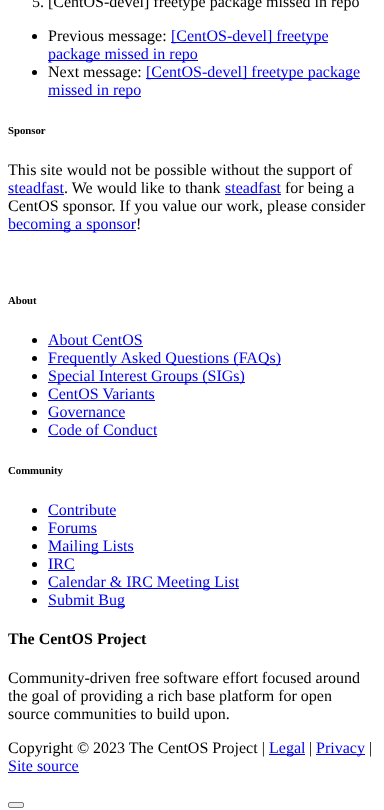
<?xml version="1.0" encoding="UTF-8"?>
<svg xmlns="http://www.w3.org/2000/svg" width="384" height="810">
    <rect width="100%" height="100%" fill="#FFFFFF"/>
    <text x="32" y="7" font-family="Liberation Serif" font-size="16" fill="#000000">5. [CentOS-devel] freetype package missed in repo</text>
    <circle cx="34.5" cy="36.5" r="2.5" fill="#000000"/>
    <text x="48" y="41" font-family="Liberation Serif" font-size="16" fill="#000000">Previous message:</text>
    <rect x="171" y="42" width="157" height="1" fill="#0000EE"/>
    <text x="171" y="41" font-family="Liberation Serif" font-size="16" fill="#0000EE">[CentOS-devel] freetype</text>
    <rect x="48" y="60" width="150" height="1" fill="#0000EE"/>
    <text x="48" y="59" font-family="Liberation Serif" font-size="16" fill="#0000EE">package missed in repo</text>
    <circle cx="34.5" cy="72.5" r="2.5" fill="#000000"/>
    <text x="48" y="77" font-family="Liberation Serif" font-size="16" fill="#000000">Next message:</text>
    <rect x="146" y="78" width="214" height="1" fill="#0000EE"/>
    <text x="146" y="77" font-family="Liberation Serif" font-size="16" fill="#0000EE">[CentOS-devel] freetype package</text>
    <rect x="48" y="96" width="93" height="1" fill="#0000EE"/>
    <text x="48" y="95" font-family="Liberation Serif" font-size="16" fill="#0000EE">missed in repo</text>
    <text x="8" y="134" font-family="Liberation Serif" font-size="10.75" font-weight="700" fill="#000000">Sponsor</text>
    <text x="8" y="175" font-family="Liberation Serif" font-size="16" fill="#000000">This site would not be possible without the support of</text>
    <text x="8" y="193" font-family="Liberation Serif" font-size="16" fill="#0000EE">steadfast</text>
    <rect x="8" y="194" width="56" height="1" fill="#0000EE"/>
    <text x="64" y="193" font-family="Liberation Serif" font-size="16" fill="#000000">. We would like to thank</text>
    <text x="225" y="193" font-family="Liberation Serif" font-size="16" fill="#0000EE">steadfast</text>
    <rect x="225" y="194" width="56" height="1" fill="#0000EE"/>
    <text x="285" y="193" font-family="Liberation Serif" font-size="16" fill="#000000">for being a</text>
    <text x="8" y="211" font-family="Liberation Serif" font-size="16" fill="#000000">CentOS sponsor. If you value our work, please consider</text>
    <rect x="8" y="230" width="128" height="1" fill="#0000EE"/>
    <text x="8" y="229" font-family="Liberation Serif" font-size="16" fill="#0000EE">becoming a sponsor</text>
    <text x="136" y="229" font-family="Liberation Serif" font-size="16" fill="#000000">!</text>
    <text x="8" y="304" font-family="Liberation Serif" font-size="10.75" font-weight="700" fill="#000000">About</text>
    <circle cx="34.5" cy="340.5" r="2.5" fill="#000000"/>
    <text x="48" y="345" font-family="Liberation Serif" font-size="16" fill="#0000EE">About CentOS</text>
    <rect x="48" y="346" width="95" height="1" fill="#0000EE"/>
    <circle cx="34.5" cy="358.5" r="2.5" fill="#000000"/>
    <rect x="48" y="364" width="233" height="1" fill="#0000EE"/>
    <text x="48" y="363" font-family="Liberation Serif" font-size="16" fill="#0000EE">Frequently Asked Questions (FAQs)</text>
    <circle cx="34.5" cy="376.5" r="2.5" fill="#000000"/>
    <rect x="48" y="382" width="197" height="1" fill="#0000EE"/>
    <text x="48" y="381" font-family="Liberation Serif" font-size="16" fill="#0000EE">Special Interest Groups (SIGs)</text>
    <circle cx="34.5" cy="394.5" r="2.5" fill="#000000"/>
    <text x="48" y="399" font-family="Liberation Serif" font-size="16" fill="#0000EE">CentOS Variants</text>
    <rect x="48" y="400" width="107" height="1" fill="#0000EE"/>
    <circle cx="34.5" cy="412.5" r="2.5" fill="#000000"/>
    <text x="48" y="417" font-family="Liberation Serif" font-size="16" fill="#0000EE">Governance</text>
    <rect x="48" y="418" width="77" height="1" fill="#0000EE"/>
    <circle cx="34.5" cy="430.5" r="2.5" fill="#000000"/>
    <text x="48" y="435" font-family="Liberation Serif" font-size="16" fill="#0000EE">Code of Conduct</text>
    <rect x="48" y="436" width="109" height="1" fill="#0000EE"/>
    <text x="8" y="474" font-family="Liberation Serif" font-size="10.75" font-weight="700" fill="#000000">Community</text>
    <circle cx="34.5" cy="510.5" r="2.5" fill="#000000"/>
    <text x="48" y="515" font-family="Liberation Serif" font-size="16" fill="#0000EE">Contribute</text>
    <rect x="48" y="516" width="68" height="1" fill="#0000EE"/>
    <circle cx="34.5" cy="528.5" r="2.5" fill="#000000"/>
    <text x="48" y="533" font-family="Liberation Serif" font-size="16" fill="#0000EE">Forums</text>
    <rect x="48" y="534" width="49" height="1" fill="#0000EE"/>
    <circle cx="34.5" cy="546.5" r="2.5" fill="#000000"/>
    <rect x="48" y="552" width="86" height="1" fill="#0000EE"/>
    <text x="48" y="551" font-family="Liberation Serif" font-size="16" fill="#0000EE">Mailing Lists</text>
    <circle cx="34.5" cy="564.5" r="2.5" fill="#000000"/>
    <text x="48" y="569" font-family="Liberation Serif" font-size="16" fill="#0000EE">IRC</text>
    <rect x="48" y="570" width="27" height="1" fill="#0000EE"/>
    <circle cx="34.5" cy="582.5" r="2.5" fill="#000000"/>
    <rect x="48" y="588" width="191" height="1" fill="#0000EE"/>
    <text x="48" y="587" font-family="Liberation Serif" font-size="16" fill="#0000EE">Calendar &amp; IRC Meeting List</text>
    <circle cx="34.5" cy="600.5" r="2.5" fill="#000000"/>
    <rect x="48" y="606" width="77" height="1" fill="#0000EE"/>
    <text x="48" y="605" font-family="Liberation Serif" font-size="16" fill="#0000EE">Submit Bug</text>
    <text x="8" y="644" font-family="Liberation Serif" font-size="16" font-weight="700" fill="#000000">The CentOS Project</text>
    <text font-family="Liberation Serif" font-size="16" fill="#000000">
        <tspan x="8" y="683">Community-driven free software effort focused around</tspan>
        <tspan x="8" y="701">the goal of providing a rich base platform for open</tspan>
        <tspan x="8" y="719">source communities to build upon.</tspan>
    </text>
    <text x="8" y="753" font-family="Liberation Serif" font-size="16" fill="#000000">Copyright © 2023 The CentOS Project |</text>
    <rect x="269" y="754" width="36" height="1" fill="#0000EE"/>
    <text x="269" y="753" font-family="Liberation Serif" font-size="16" fill="#0000EE">Legal</text>
    <text x="309" y="753" font-family="Liberation Serif" font-size="16" fill="#000000">|</text>
    <rect x="316" y="754" width="49" height="1" fill="#0000EE"/>
    <text x="316" y="753" font-family="Liberation Serif" font-size="16" fill="#0000EE">Privacy</text>
    <text x="369" y="753" font-family="Liberation Serif" font-size="16" fill="#000000">|</text>
    <text x="8" y="771" font-family="Liberation Serif" font-size="16" fill="#0000EE">Site source</text>
    <rect x="8" y="772" width="71" height="1" fill="#0000EE"/>
    <rect x="8.5" y="802.5" width="15" height="5" rx="1.5" fill="#EFEFEF" stroke="#767676"/>
</svg>
